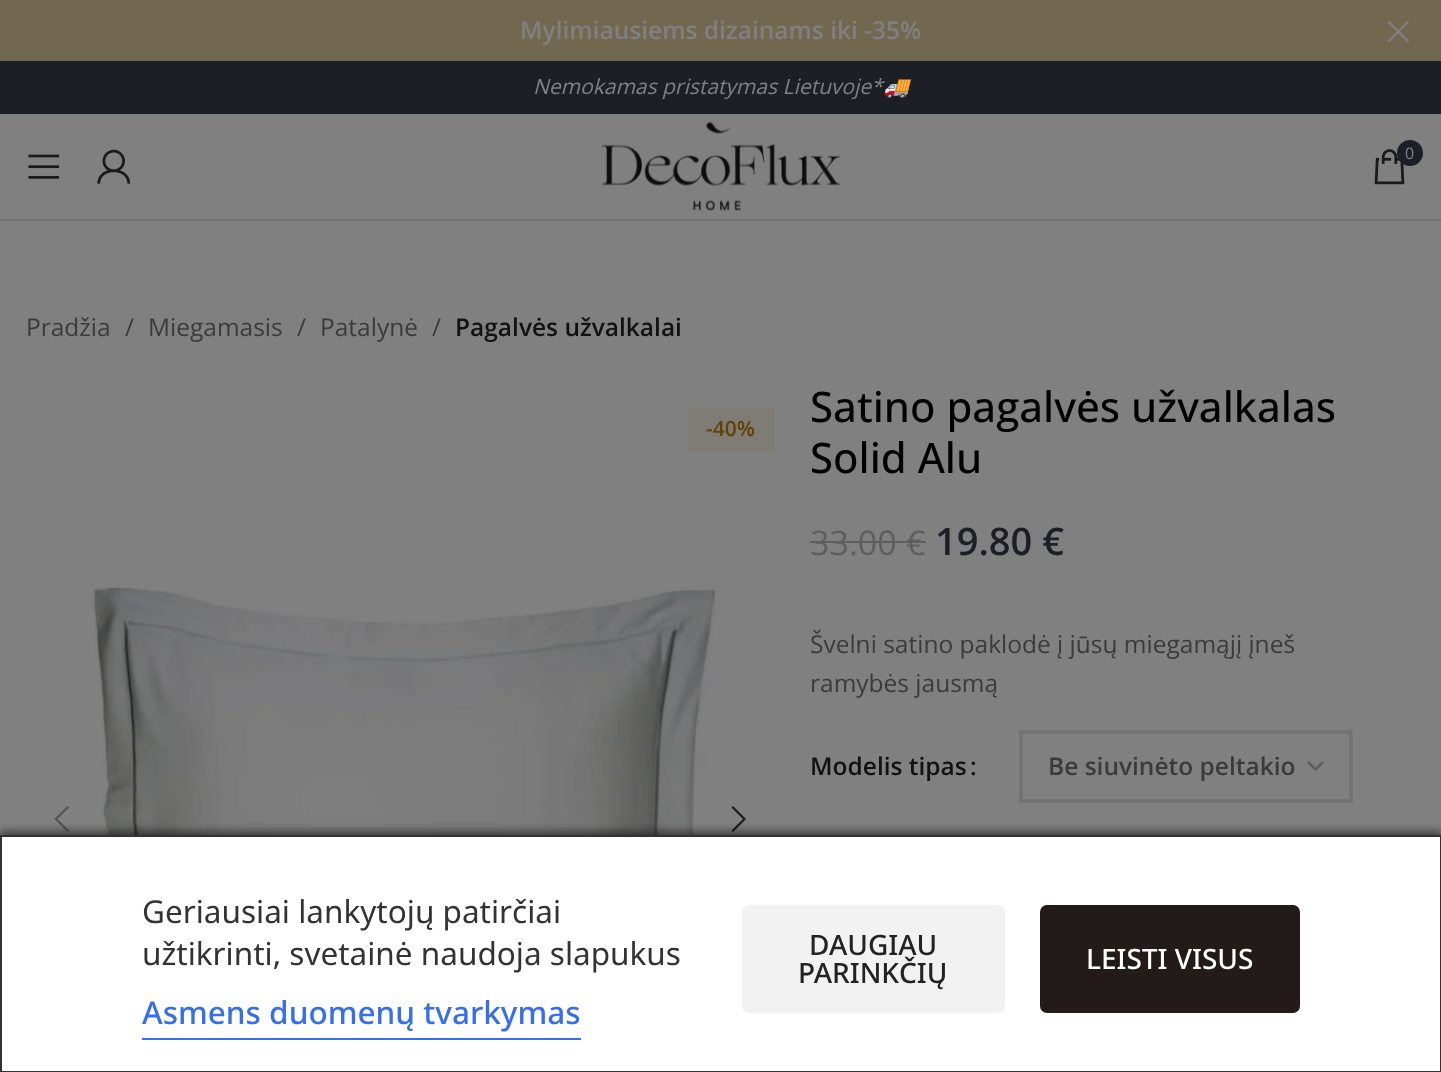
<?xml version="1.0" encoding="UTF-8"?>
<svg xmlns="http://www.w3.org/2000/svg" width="1441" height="1072">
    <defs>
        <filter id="blur1" x="-50%" y="-200%" width="200%" height="500%"><feGaussianBlur stdDeviation="4.5"/></filter>
    </defs>
    <rect width="100%" height="100%" fill="#808080"/>
    <rect x="0" y="0" width="1441" height="61" fill="#72684F"/>
    <text x="520" y="39" font-family="Open Sans" font-size="24.5" font-weight="600" fill="#808080">Mylimiausiems dizainams iki -35%</text>
    <image x="1387" y="20" width="22" height="23" href="img_01.png"/>
    <rect x="0" y="61" width="1441" height="53" fill="#1C1F26"/>
    <text x="533" y="94" font-family="Open Sans" font-size="21" font-style="italic" fill="#808080">Nemokamas pristatymas Lietuvoje*</text>
    <text x="883" y="94" font-family="Noto Color Emoji" font-size="21" font-style="italic" fill="#808080">🚚</text>
    <rect x="0" y="219" width="1441" height="2" fill="#737373"/>
    <image x="28" y="154" width="32" height="25" href="img_02.png"/>
    <image x="97" y="149" width="34" height="35" href="img_03.png"/>
    <image x="602" y="121" width="238" height="90" href="img_04.png"/>
    <image x="1374" y="149" width="31" height="36" href="img_05.png"/>
    <circle cx="1410" cy="153" r="13" fill="#1C1F26"/>
    <text x="1405" y="159" font-family="Open Sans" font-size="16" fill="#808080">0</text>
    <text x="26" y="336" font-family="Open Sans" font-size="24.5" fill="#3B3B3B">Pradžia</text>
    <text x="125" y="336" font-family="Open Sans" font-size="24.5" fill="#3B3B3B">/</text>
    <text x="148" y="336" font-family="Open Sans" font-size="24.5" fill="#3B3B3B">Miegamasis</text>
    <text x="297" y="336" font-family="Open Sans" font-size="24.5" fill="#3B3B3B">/</text>
    <text x="320" y="336" font-family="Open Sans" font-size="24.5" fill="#3B3B3B">Patalynė</text>
    <text x="432" y="336" font-family="Open Sans" font-size="24.5" fill="#3B3B3B">/</text>
    <text x="455" y="336" font-family="Open Sans" font-size="24.5" font-weight="600" fill="#121212">Pagalvės užvalkalai</text>
    <rect x="688" y="408" width="87" height="44" fill="#7F7C75"/>
    <text x="706" y="436" font-family="Open Sans" font-size="21" font-weight="600" fill="#604207">-40%</text>
    <image x="76" y="587" width="640" height="248" href="img_06.png"/>
    <path d="M 69 807.5 L 67.5 806 L 54.5 819 L 67.5 832 L 69 830.5 L 57.5 819 Z" fill="#535353"/>
    <path d="M 731.5 807.5 L 743 819 L 731.5 830.5 L 733 832 L 746 819 L 733 806 Z" fill="#1A1A1A"/>
    <text font-family="Open Sans" font-size="42" font-weight="500" fill="#000000">
        <tspan x="810" y="422">Satino pagalvės užvalkalas</tspan>
        <tspan x="810" y="473">Solid Alu</tspan>
    </text>
    <text x="810" y="555" font-family="Open Sans" font-size="34" fill="#5E5E5E">33.00</text>
    <rect x="810" y="541" width="97" height="2" fill="#5E5E5E"/>
    <text x="906" y="555" font-family="Open Sans" font-size="34" fill="#5E5E5E">€</text>
    <rect x="907" y="541" width="19" height="2" fill="#5E5E5E"/>
    <text x="935" y="555" font-family="Open Sans" font-size="38" font-weight="600" fill="#1C1F26">19.80 €</text>
    <text font-family="Open Sans" font-size="24.5" fill="#3B3B3B">
        <tspan x="810" y="653">Švelni satino paklodė į jūsų miegamąjį įneš</tspan>
        <tspan x="810" y="692">ramybės jausmą</tspan>
    </text>
    <text x="810" y="775" font-family="Open Sans" font-size="24.5" font-weight="600" fill="#121212">Modelis tipas</text>
    <text x="970" y="775" font-family="Open Sans" font-size="24.5" font-weight="600" fill="#121212">:</text>
    <path d="M 1308 762 L 1315.5 769.5 L 1323 762" fill="none" stroke="#5E5E5E" stroke-width="2.5"/>
    <rect x="1021" y="732" width="330" height="69" fill="none" stroke="#737373" stroke-width="4"/>
    <text x="1048" y="775" font-family="Open Sans" font-size="24.5" font-weight="600" fill="#3B3B3B">Be siuvinėto peltakio</text>
    <rect x="0" y="831" width="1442" height="238" fill="#000000" fill-opacity="0.5" filter="url(#blur1)"/>
    <rect x="1" y="836" width="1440" height="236" fill="#FFFFFF" stroke="#333333" stroke-width="2"/>
    <text font-family="Noto Sans" font-size="31.5" fill="#333333">
        <tspan x="142" y="923">Geriausiai lankytojų patirčiai</tspan>
        <tspan x="142" y="965">užtikrinti, svetainė naudoja slapukus</tspan>
    </text>
    <text x="142" y="1024" font-family="Noto Sans" font-size="31.5" font-weight="500" fill="#376EF0">Asmens duomenų tvarkymas</text>
    <rect x="142" y="1038" width="439" height="2" fill="#376EF0"/>
    <rect x="742" y="905" width="263" height="108" rx="7" fill="#F2F2F2"/>
    <text x="809" y="955" font-family="Noto Sans" font-size="28" font-weight="500" fill="#232323">DAUGIAU</text>
    <text x="798" y="983" font-family="Noto Sans" font-size="28" font-weight="500" fill="#232323">PARINKČIŲ</text>
    <rect x="1040" y="905" width="260" height="108" rx="7" fill="#231A1A"/>
    <text x="1086" y="969" font-family="Noto Sans" font-size="28" font-weight="500" fill="#FFFFFF">LEISTI VISUS</text>
</svg>
